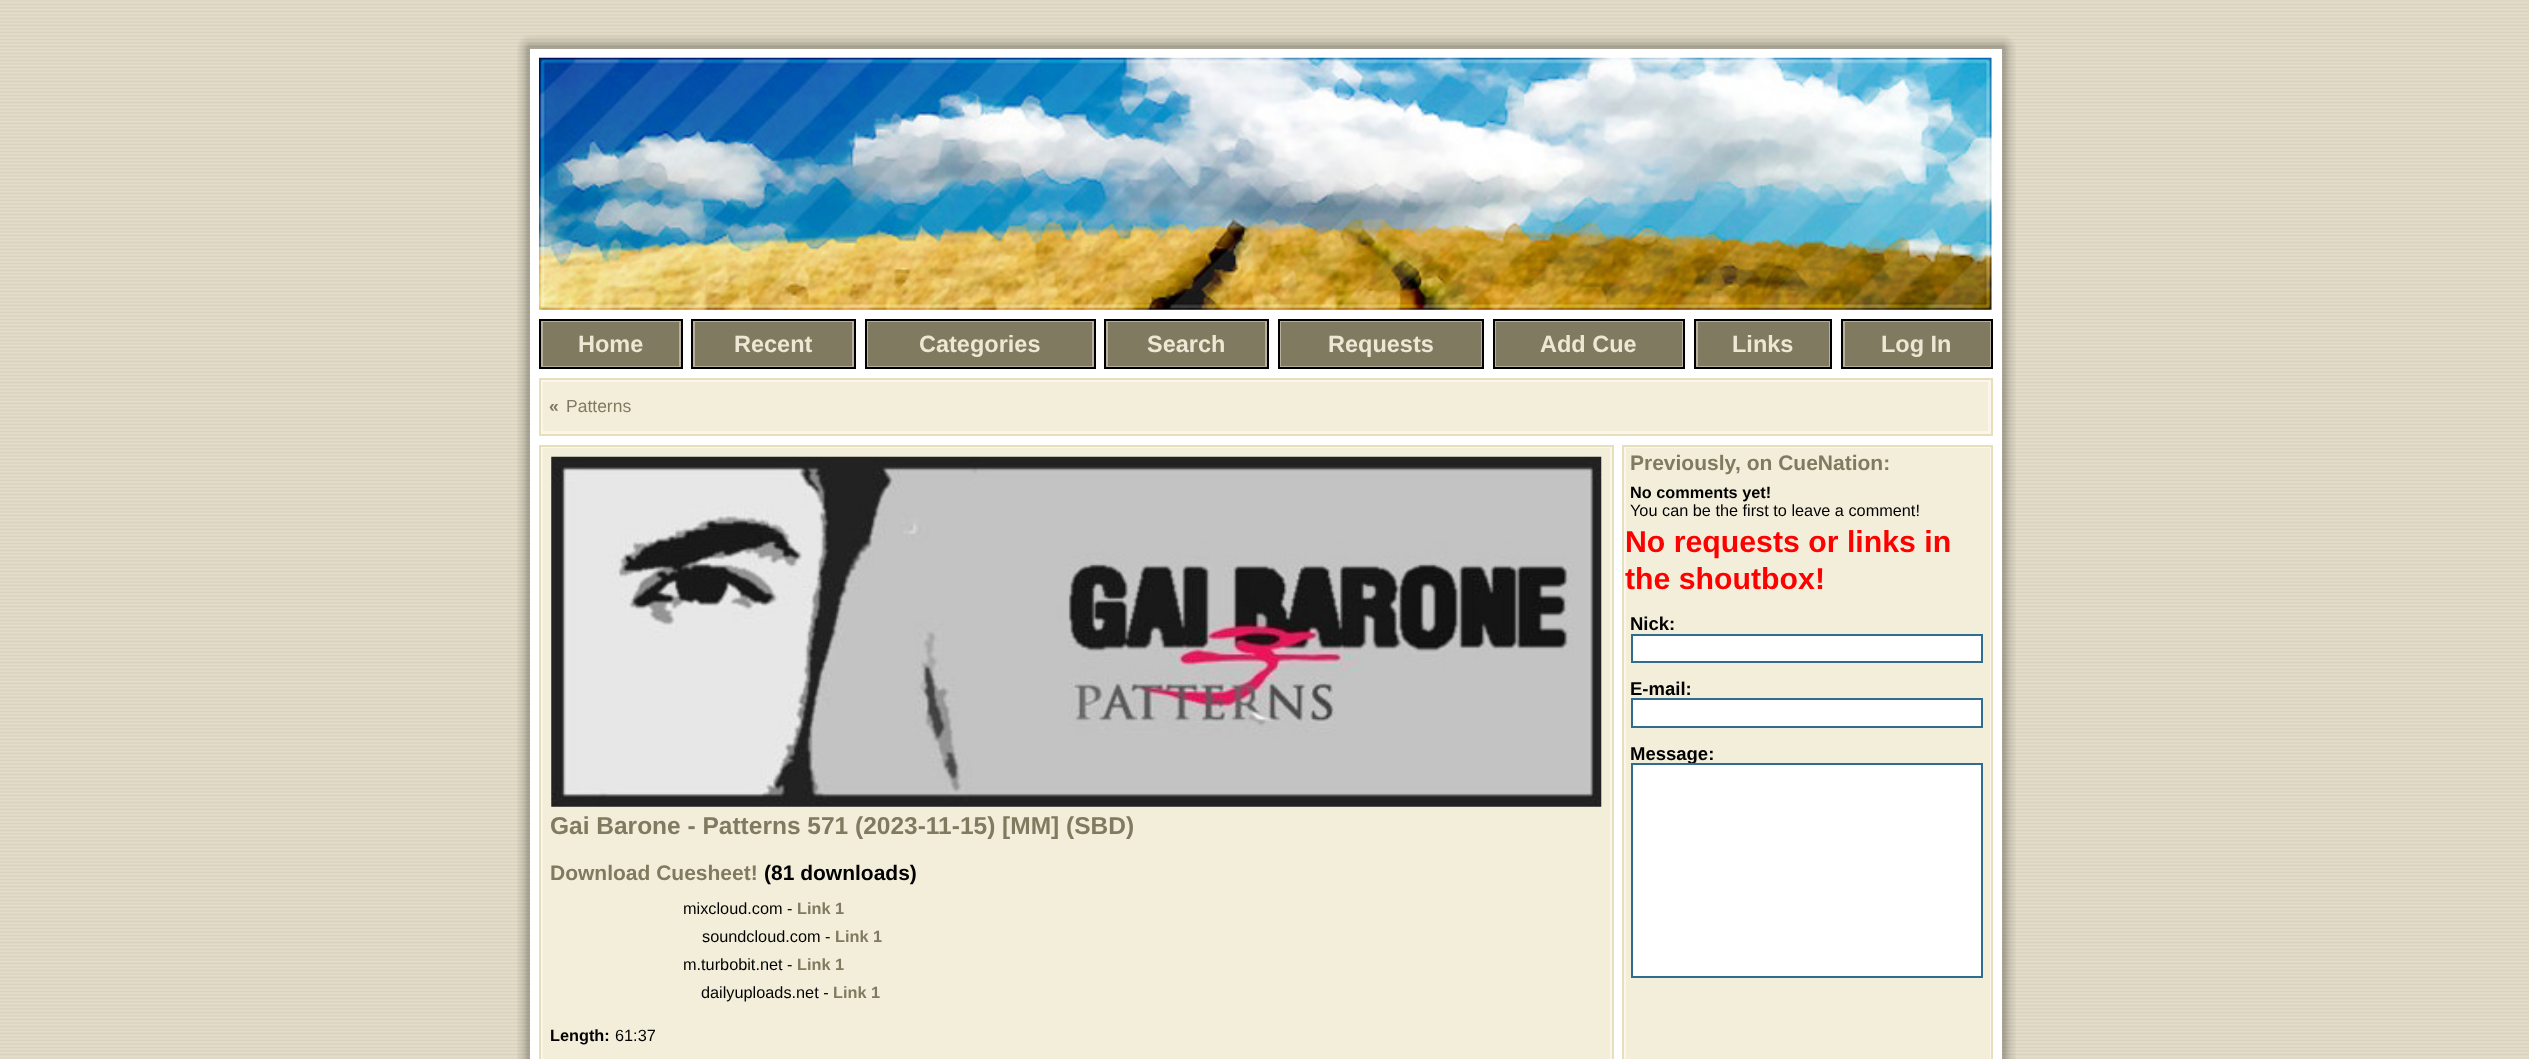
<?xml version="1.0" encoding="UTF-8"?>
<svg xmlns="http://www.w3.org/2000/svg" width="2529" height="1059">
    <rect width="100%" height="100%" fill="#DED8C4"/>
    <image x="0" y="2" width="2529" height="1055" href="img_01.png"/>
    <image x="517" y="35" width="14" height="14" href="img_02.png"/>
    <image x="530" y="35" width="1472" height="14" href="img_03.png"/>
    <image x="2002" y="35" width="14" height="14" href="img_04.png"/>
    <image x="517" y="49" width="13" height="1010" href="img_05.png"/>
    <rect x="530" y="49" width="1472" height="1010" fill="#FFFFFF"/>
    <image x="539" y="57" width="1453" height="253" href="img_06.png"/>
    <rect x="540" y="320" width="142" height="48" fill="#B7AF9C" stroke="#000000" stroke-width="2"/>
    <rect x="543" y="322" width="136" height="44" fill="#807A60"/>
    <text x="578" y="352" font-family="Liberation Sans" font-size="23.5" font-weight="700" fill="#EDE8D4">Home</text>
    <rect x="692" y="320" width="163" height="48" fill="#B7AF9C" stroke="#000000" stroke-width="2"/>
    <rect x="695" y="322" width="157" height="44" fill="#807A60"/>
    <text x="734" y="352" font-family="Liberation Sans" font-size="23.5" font-weight="700" fill="#EDE8D4">Recent</text>
    <rect x="866" y="320" width="229" height="48" fill="#B7AF9C" stroke="#000000" stroke-width="2"/>
    <rect x="868" y="322" width="224" height="44" fill="#807A60"/>
    <text x="919" y="352" font-family="Liberation Sans" font-size="23.5" font-weight="700" fill="#EDE8D4">Categories</text>
    <rect x="1105" y="320" width="163" height="48" fill="#B7AF9C" stroke="#000000" stroke-width="2"/>
    <rect x="1108" y="322" width="157" height="44" fill="#807A60"/>
    <text x="1147" y="352" font-family="Liberation Sans" font-size="23.5" font-weight="700" fill="#EDE8D4">Search</text>
    <rect x="1279" y="320" width="204" height="48" fill="#B7AF9C" stroke="#000000" stroke-width="2"/>
    <rect x="1281" y="322" width="200" height="44" fill="#807A60"/>
    <text x="1328" y="352" font-family="Liberation Sans" font-size="23.5" font-weight="700" fill="#EDE8D4">Requests</text>
    <rect x="1494" y="320" width="190" height="48" fill="#B7AF9C" stroke="#000000" stroke-width="2"/>
    <rect x="1496" y="322" width="186" height="44" fill="#807A60"/>
    <text x="1540" y="352" font-family="Liberation Sans" font-size="23.5" font-weight="700" fill="#EDE8D4">Add Cue</text>
    <rect x="1695" y="320" width="136" height="48" fill="#B7AF9C" stroke="#000000" stroke-width="2"/>
    <rect x="1698" y="322" width="131" height="44" fill="#807A60"/>
    <text x="1732" y="352" font-family="Liberation Sans" font-size="23.5" font-weight="700" fill="#EDE8D4">Links</text>
    <rect x="1842" y="320" width="150" height="48" fill="#B7AF9C" stroke="#000000" stroke-width="2"/>
    <rect x="1845" y="322" width="145" height="44" fill="#807A60"/>
    <text x="1881" y="352" font-family="Liberation Sans" font-size="23.5" font-weight="700" fill="#EDE8D4">Log In</text>
    <rect x="540" y="379" width="1452" height="56" fill="#FDF5EA" stroke="#E4E0BB" stroke-width="2"/>
    <rect x="543" y="382" width="1445" height="49" fill="#F3EEDA"/>
    <text x="549" y="412" font-family="Liberation Sans" font-size="17.5" font-weight="700" fill="#807A60">«</text>
    <text x="566" y="412" font-family="Liberation Sans" font-size="17.5" fill="#807A60">Patterns</text>
    <rect x="1623" y="446" width="369" height="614" fill="#FDF5EA" stroke="#E4E0BB" stroke-width="2"/>
    <rect x="1626" y="448" width="364" height="611" fill="#F3EEDA"/>
    <text x="1630" y="470" font-family="Liberation Sans" font-size="21" font-weight="700" fill="#807A60">Previously</text>
    <text x="1735" y="470" font-family="Liberation Sans" font-size="21" font-weight="700" fill="#807A60">, on CueNation:</text>
    <text x="1630" y="498" font-family="Liberation Sans" font-size="16.3" font-weight="700" fill="#000000">No comments yet!</text>
    <text x="1630" y="516" font-family="Liberation Sans" font-size="16.3" fill="#000000">You can be the first to leave a comment!</text>
    <text font-family="Liberation Sans" font-size="30.25" font-weight="700" fill="#FF0000">
        <tspan x="1625" y="552">No requests or links in</tspan>
        <tspan x="1625" y="589">the shoutbox!</tspan>
    </text>
    <text x="1630" y="630" font-family="Liberation Sans" font-size="18.5" font-weight="700" fill="#000000">Nick:</text>
    <rect x="1632" y="635" width="350" height="27" fill="#FFFFFF" stroke="#306C90" stroke-width="2"/>
    <text x="1630" y="695" font-family="Liberation Sans" font-size="18.5" font-weight="700" fill="#000000">E-mail:</text>
    <rect x="1632" y="699" width="350" height="28" fill="#FFFFFF" stroke="#306C90" stroke-width="2"/>
    <text x="1630" y="760" font-family="Liberation Sans" font-size="18.5" font-weight="700" fill="#000000">Message:</text>
    <rect x="1632" y="764" width="350" height="213" fill="#FFFFFF" stroke="#306C90" stroke-width="2"/>
    <rect x="540" y="446" width="1073" height="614" fill="#FDF5EA" stroke="#E4E0BB" stroke-width="2"/>
    <rect x="543" y="448" width="1067" height="611" fill="#F3EEDA"/>
    <image x="551" y="456" width="1051" height="351" href="img_07.png"/>
    <text x="550" y="834" font-family="Liberation Sans" font-size="24.5" font-weight="700" fill="#807A60">Gai Barone - Patterns 571 (2023-11-15) [MM] (SBD)</text>
    <text x="550" y="880" font-family="Liberation Sans" font-size="21" font-weight="700" fill="#807A60">Download Cuesheet!</text>
    <text x="764" y="880" font-family="Liberation Sans" font-size="21" font-weight="700" fill="#000000">(81 downloads)</text>
    <text x="683" y="914" font-family="Liberation Sans" font-size="16.3" fill="#000000">mixcloud.com -</text>
    <text x="797" y="914" font-family="Liberation Sans" font-size="16.3" font-weight="700" fill="#807A60">Link 1</text>
    <text x="702" y="942" font-family="Liberation Sans" font-size="16.3" fill="#000000">soundcloud.com -</text>
    <text x="835" y="942" font-family="Liberation Sans" font-size="16.3" font-weight="700" fill="#807A60">Link 1</text>
    <text x="683" y="970" font-family="Liberation Sans" font-size="16.3" fill="#000000">m.turbobit.net -</text>
    <text x="797" y="970" font-family="Liberation Sans" font-size="16.3" font-weight="700" fill="#807A60">Link 1</text>
    <text x="701" y="998" font-family="Liberation Sans" font-size="16.3" fill="#000000">dailyuploads.net -</text>
    <text x="833" y="998" font-family="Liberation Sans" font-size="16.3" font-weight="700" fill="#807A60">Link 1</text>
    <text x="550" y="1041" font-family="Liberation Sans" font-size="16.3" font-weight="700" fill="#000000">Length:</text>
    <text x="615" y="1041" font-family="Liberation Sans" font-size="16.3" fill="#000000">61:37</text>
    <image x="2002" y="49" width="14" height="1010" href="img_08.png"/>
</svg>
